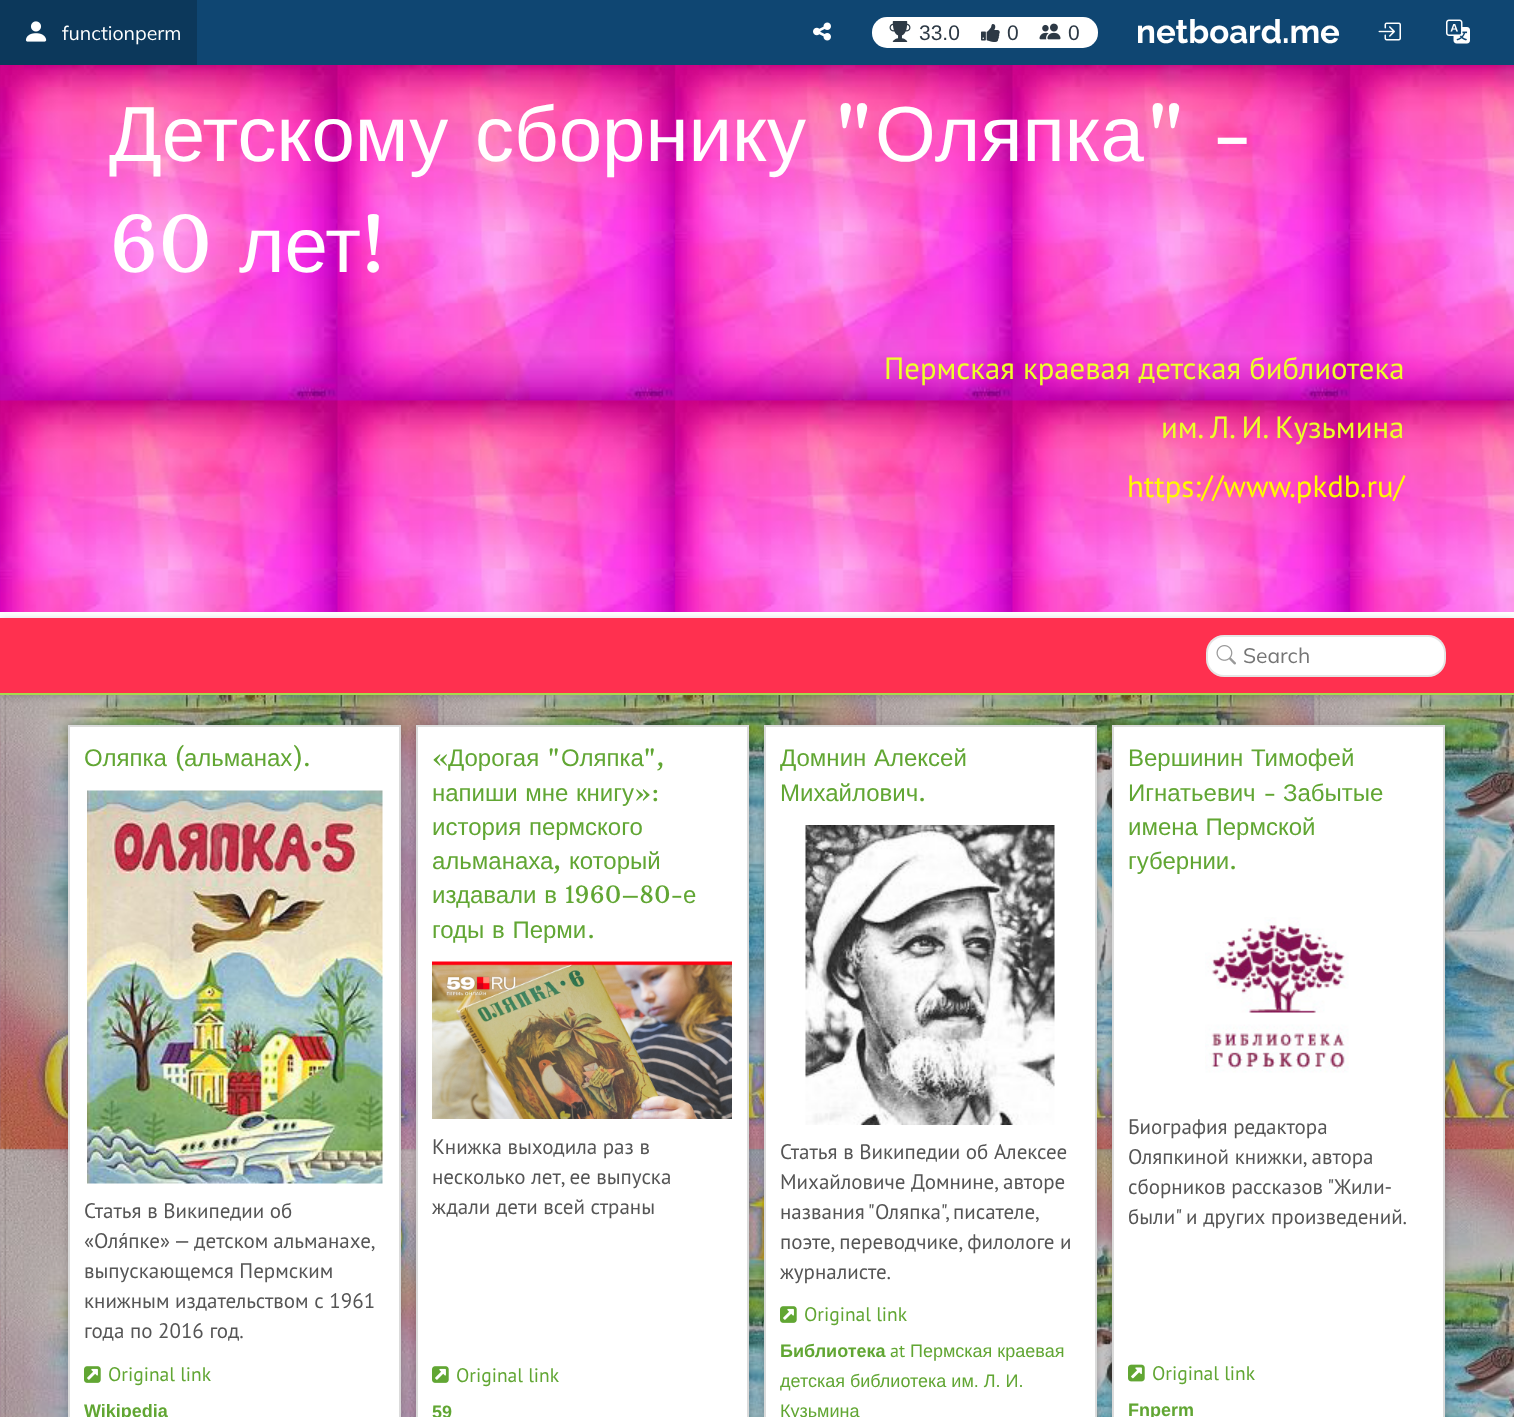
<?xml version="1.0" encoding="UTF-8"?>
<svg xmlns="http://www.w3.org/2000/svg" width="1514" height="1417">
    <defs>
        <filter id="blur1" x="-50%" y="-200%" width="200%" height="500%"><feGaussianBlur stdDeviation="4"/></filter>
    </defs>
    <rect width="100%" height="100%" fill="#FFFFFF"/>
    <rect x="197" y="0" width="1317" height="65" fill="#0F4672"/>
    <rect x="0" y="0" width="197" height="65" fill="#0C385B"/>
    <image x="25" y="21" width="22" height="21" href="img_01.png"/>
    <text x="62" y="40" font-family="Mulish" font-size="19.5" fill="#FFFFFF">functionperm</text>
    <image x="813" y="22" width="18" height="19" href="img_02.png"/>
    <rect x="872" y="17" width="226" height="31" rx="15" fill="#FFFFFF"/>
    <image x="889" y="21" width="22" height="21" href="img_03.png"/>
    <text x="919" y="40" font-family="Liberation Sans" font-size="21" fill="#2D3945">33.0</text>
    <image x="981" y="24" width="19" height="18" href="img_04.png"/>
    <text x="1007" y="40" font-family="Liberation Sans" font-size="21" fill="#2D3945">0</text>
    <image x="1039" y="23" width="22" height="17" href="img_05.png"/>
    <text x="1068" y="40" font-family="Liberation Sans" font-size="21" fill="#2D3945">0</text>
    <text x="1136" y="43" font-family="Raleway" font-size="33" font-weight="700" fill="#FFFFFF">netboard.me</text>
    <image x="1378" y="22" width="23" height="19" href="img_06.png"/>
    <image x="1446" y="19" width="24" height="25" href="img_07.png"/>
    <image x="0" y="695" width="1514" height="722" href="img_08.png"/>
    <image x="0" y="65" width="1514" height="547" href="img_09.png"/>
    <text x="109" y="161" font-family="Liberation Sans" font-size="78" fill="#FFFFFF">Детскому</text>
    <text x="475" y="161" font-family="Liberation Sans" font-size="78" fill="#FFFFFF">сборнику</text>
    <text x="832" y="161" font-family="Arbutus Slab" font-size="78" fill="#FFFFFF">"</text>
    <text x="875" y="161" font-family="Liberation Sans" font-size="78" fill="#FFFFFF">Оляпка</text>
    <text x="1144" y="161" font-family="Arbutus Slab" font-size="78" fill="#FFFFFF">" -</text>
    <text x="109" y="272" font-family="Arbutus Slab" font-size="78" fill="#FFFFFF">60</text>
    <text x="239" y="272" font-family="Liberation Sans" font-size="78" fill="#FFFFFF">лет</text>
    <text x="362" y="272" font-family="Arbutus Slab" font-size="78" fill="#FFFFFF">!</text>
    <text x="884" y="379" font-family="PT Sans" font-size="30.75" fill="#EDFF29">Пермская краевая детская библиотека</text>
    <text x="1161" y="438" font-family="PT Sans" font-size="30.75" fill="#EDFF29">им. Л. И. Кузьмина</text>
    <text x="1127" y="497" font-family="PT Sans" font-size="30.75" fill="#FFFB00">https://www.pkdb.ru/</text>
    <rect x="0" y="695" width="1514" height="722" fill="#000000" fill-opacity="0.22"/>
    <rect x="0" y="620" width="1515" height="76" fill="#000000" fill-opacity="0.2" filter="url(#blur1)"/>
    <rect x="0" y="618" width="1514" height="75" fill="#FF304F"/>
    <rect x="0" y="693" width="1514" height="2" fill="#A6D94E"/>
    <rect x="1206" y="635" width="240" height="42" rx="18" fill="#FFFFFF"/>
    <rect x="1207" y="636" width="238" height="40" rx="17" fill="none" stroke="#000000" stroke-opacity="0.1" stroke-width="2"/>
    <image x="1216" y="645" width="20" height="20" href="img_10.png"/>
    <text x="1243" y="663" font-family="Mulish" font-size="21" fill="#757575">Search</text>
    <rect x="68" y="725" width="333" height="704" fill="#000000" fill-opacity="0.2" filter="url(#blur1)"/>
    <rect x="69" y="726" width="331" height="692" fill="#FFFFFF" stroke="#DBDBDB" stroke-width="2"/>
    <text x="84" y="766" font-family="Liberation Sans" font-size="24" fill="#61A633">Оляпка</text>
    <text x="175" y="766" font-family="Arbutus Slab" font-size="24" fill="#61A633">(</text>
    <text x="184" y="766" font-family="Liberation Sans" font-size="24" fill="#61A633">альманах</text>
    <text x="293" y="766" font-family="Arbutus Slab" font-size="24" fill="#61A633">).</text>
    <image x="87" y="790" width="296" height="394" href="img_11.png"/>
    <text font-family="PT Sans" font-size="21" fill="#555555">
        <tspan x="84" y="1218">Статья в Википедии об</tspan>
        <tspan x="84" y="1248" word-spacing="-0.5">«Оля́пке» — детском альманахе,</tspan>
        <tspan x="84" y="1278">выпускающемся Пермским</tspan>
        <tspan x="84" y="1308">книжным издательством с 1961</tspan>
        <tspan x="84" y="1338">года по 2016 год.</tspan>
    </text>
    <image x="84" y="1366" width="17" height="17" href="img_12.png"/>
    <text x="108" y="1381" font-family="PT Sans" font-size="19.5" fill="#61A633">Original link</text>
    <text x="84" y="1417" font-family="Liberation Sans" font-size="18" font-weight="700" fill="#61A633">Wikipedia</text>
    <rect x="416" y="725" width="333" height="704" fill="#000000" fill-opacity="0.2" filter="url(#blur1)"/>
    <rect x="417" y="726" width="331" height="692" fill="#FFFFFF" stroke="#DBDBDB" stroke-width="2"/>
    <text x="432" y="766" font-family="Arbutus Slab" font-size="24" fill="#61A633">«</text>
    <text x="448" y="766" font-family="Liberation Sans" font-size="24" fill="#61A633">Дорогая</text>
    <text x="547" y="766" font-family="Arbutus Slab" font-size="24" fill="#61A633">"</text>
    <text x="561" y="766" font-family="Liberation Sans" font-size="24" fill="#61A633">Оляпка</text>
    <text x="643" y="766" font-family="Arbutus Slab" font-size="24" fill="#61A633">",</text>
    <text x="432" y="801" word-spacing="1" font-family="Liberation Sans" font-size="24" fill="#61A633">напиши мне книгу</text>
    <text x="635" y="801" font-family="Arbutus Slab" font-size="24" fill="#61A633">»:</text>
    <text font-family="Liberation Sans" font-size="24" fill="#61A633">
        <tspan x="432" y="835" word-spacing="1">история пермского</tspan>
        <tspan x="432" y="869">альманаха</tspan>
    </text>
    <text x="553" y="869" font-family="Arbutus Slab" font-size="24" fill="#61A633">,</text>
    <text x="569" y="869" font-family="Liberation Sans" font-size="24" fill="#61A633">который</text>
    <text x="432" y="903" word-spacing="1" font-family="Liberation Sans" font-size="24" fill="#61A633">издавали в</text>
    <text x="565" y="903" font-family="Arbutus Slab" font-size="24" fill="#61A633">1960–80-</text>
    <text x="683" y="903" font-family="Liberation Sans" font-size="24" fill="#61A633">е</text>
    <text x="432" y="938" word-spacing="1" font-family="Liberation Sans" font-size="24" fill="#61A633">годы в Перми</text>
    <text x="587" y="938" font-family="Arbutus Slab" font-size="24" fill="#61A633">.</text>
    <image x="432" y="961" width="300" height="158" href="img_13.png"/>
    <text font-family="PT Sans" font-size="21" fill="#555555">
        <tspan x="432" y="1154">Книжка выходила раз в</tspan>
        <tspan x="432" y="1184">несколько лет, ее выпуска</tspan>
        <tspan x="432" y="1214">ждали дети всей страны</tspan>
    </text>
    <image x="432" y="1366" width="17" height="17" href="img_12.png"/>
    <text x="456" y="1382" font-family="PT Sans" font-size="19.5" fill="#61A633">Original link</text>
    <text x="432" y="1418" font-family="Liberation Sans" font-size="18" font-weight="700" fill="#61A633">59</text>
    <rect x="764" y="725" width="333" height="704" fill="#000000" fill-opacity="0.2" filter="url(#blur1)"/>
    <rect x="765" y="726" width="331" height="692" fill="#FFFFFF" stroke="#DBDBDB" stroke-width="2"/>
    <text font-family="Liberation Sans" font-size="24" fill="#61A633">
        <tspan x="780" y="766" word-spacing="1">Домнин Алексей</tspan>
        <tspan x="780" y="801">Михайлович</tspan>
    </text>
    <text x="918" y="801" font-family="Arbutus Slab" font-size="24" fill="#61A633">.</text>
    <image x="805" y="825" width="250" height="300" href="img_14.png"/>
    <text font-family="PT Sans" font-size="21" fill="#555555">
        <tspan x="780" y="1159">Статья в Википедии об Алексее</tspan>
        <tspan x="780" y="1189">Михайловиче Домнине, авторе</tspan>
        <tspan x="780" y="1219" word-spacing="-1">названия "Оляпка", писателе,</tspan>
        <tspan x="780" y="1249">поэте, переводчике, филологе и</tspan>
        <tspan x="780" y="1279">журналисте.</tspan>
    </text>
    <image x="780" y="1306" width="17" height="17" href="img_12.png"/>
    <text x="804" y="1321" font-family="PT Sans" font-size="19.5" fill="#61A633">Original link</text>
    <text x="780" y="1357" font-family="Liberation Sans" font-size="18" font-weight="700" fill="#61A633">Библиотека</text>
    <text x="890" y="1357" font-family="PT Sans" font-size="18" fill="#61A633">at</text>
    <text x="910" y="1357" font-family="Liberation Sans" font-size="18" fill="#61A633">Пермская краевая</text>
    <text font-family="Liberation Sans" font-size="18" fill="#61A633">
        <tspan x="780" y="1387">детская библиотека им. Л. И.</tspan>
        <tspan x="780" y="1417">Кузьмина</tspan>
    </text>
    <rect x="1112" y="725" width="333" height="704" fill="#000000" fill-opacity="0.2" filter="url(#blur1)"/>
    <rect x="1113" y="726" width="331" height="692" fill="#FFFFFF" stroke="#DBDBDB" stroke-width="2"/>
    <text font-family="Liberation Sans" font-size="24" fill="#61A633">
        <tspan x="1128" y="766" word-spacing="1">Вершинин Тимофей</tspan>
        <tspan x="1128" y="801">Игнатьевич</tspan>
    </text>
    <text x="1264" y="801" font-family="Arbutus Slab" font-size="24" fill="#61A633">-</text>
    <text x="1283" y="801" font-family="Liberation Sans" font-size="24" fill="#61A633">Забытые</text>
    <text font-family="Liberation Sans" font-size="24" fill="#61A633">
        <tspan x="1128" y="835" word-spacing="1">имена Пермской</tspan>
        <tspan x="1128" y="869">губернии</tspan>
    </text>
    <text x="1229" y="869" font-family="Arbutus Slab" font-size="24" fill="#61A633">.</text>
    <image x="1205" y="917" width="144" height="156" href="img_15.png"/>
    <text font-family="PT Sans" font-size="21" fill="#555555">
        <tspan x="1128" y="1134">Биография редактора</tspan>
        <tspan x="1128" y="1164">Оляпкиной книжки, автора</tspan>
        <tspan x="1128" y="1194">сборников рассказов "Жили-</tspan>
        <tspan x="1128" y="1224">были" и других произведений.</tspan>
    </text>
    <image x="1128" y="1364" width="17" height="18" href="img_16.png"/>
    <text x="1152" y="1380" font-family="PT Sans" font-size="19.5" fill="#61A633">Original link</text>
    <text x="1128" y="1416" font-family="Liberation Sans" font-size="18" font-weight="700" fill="#61A633">Fnperm</text>
</svg>
